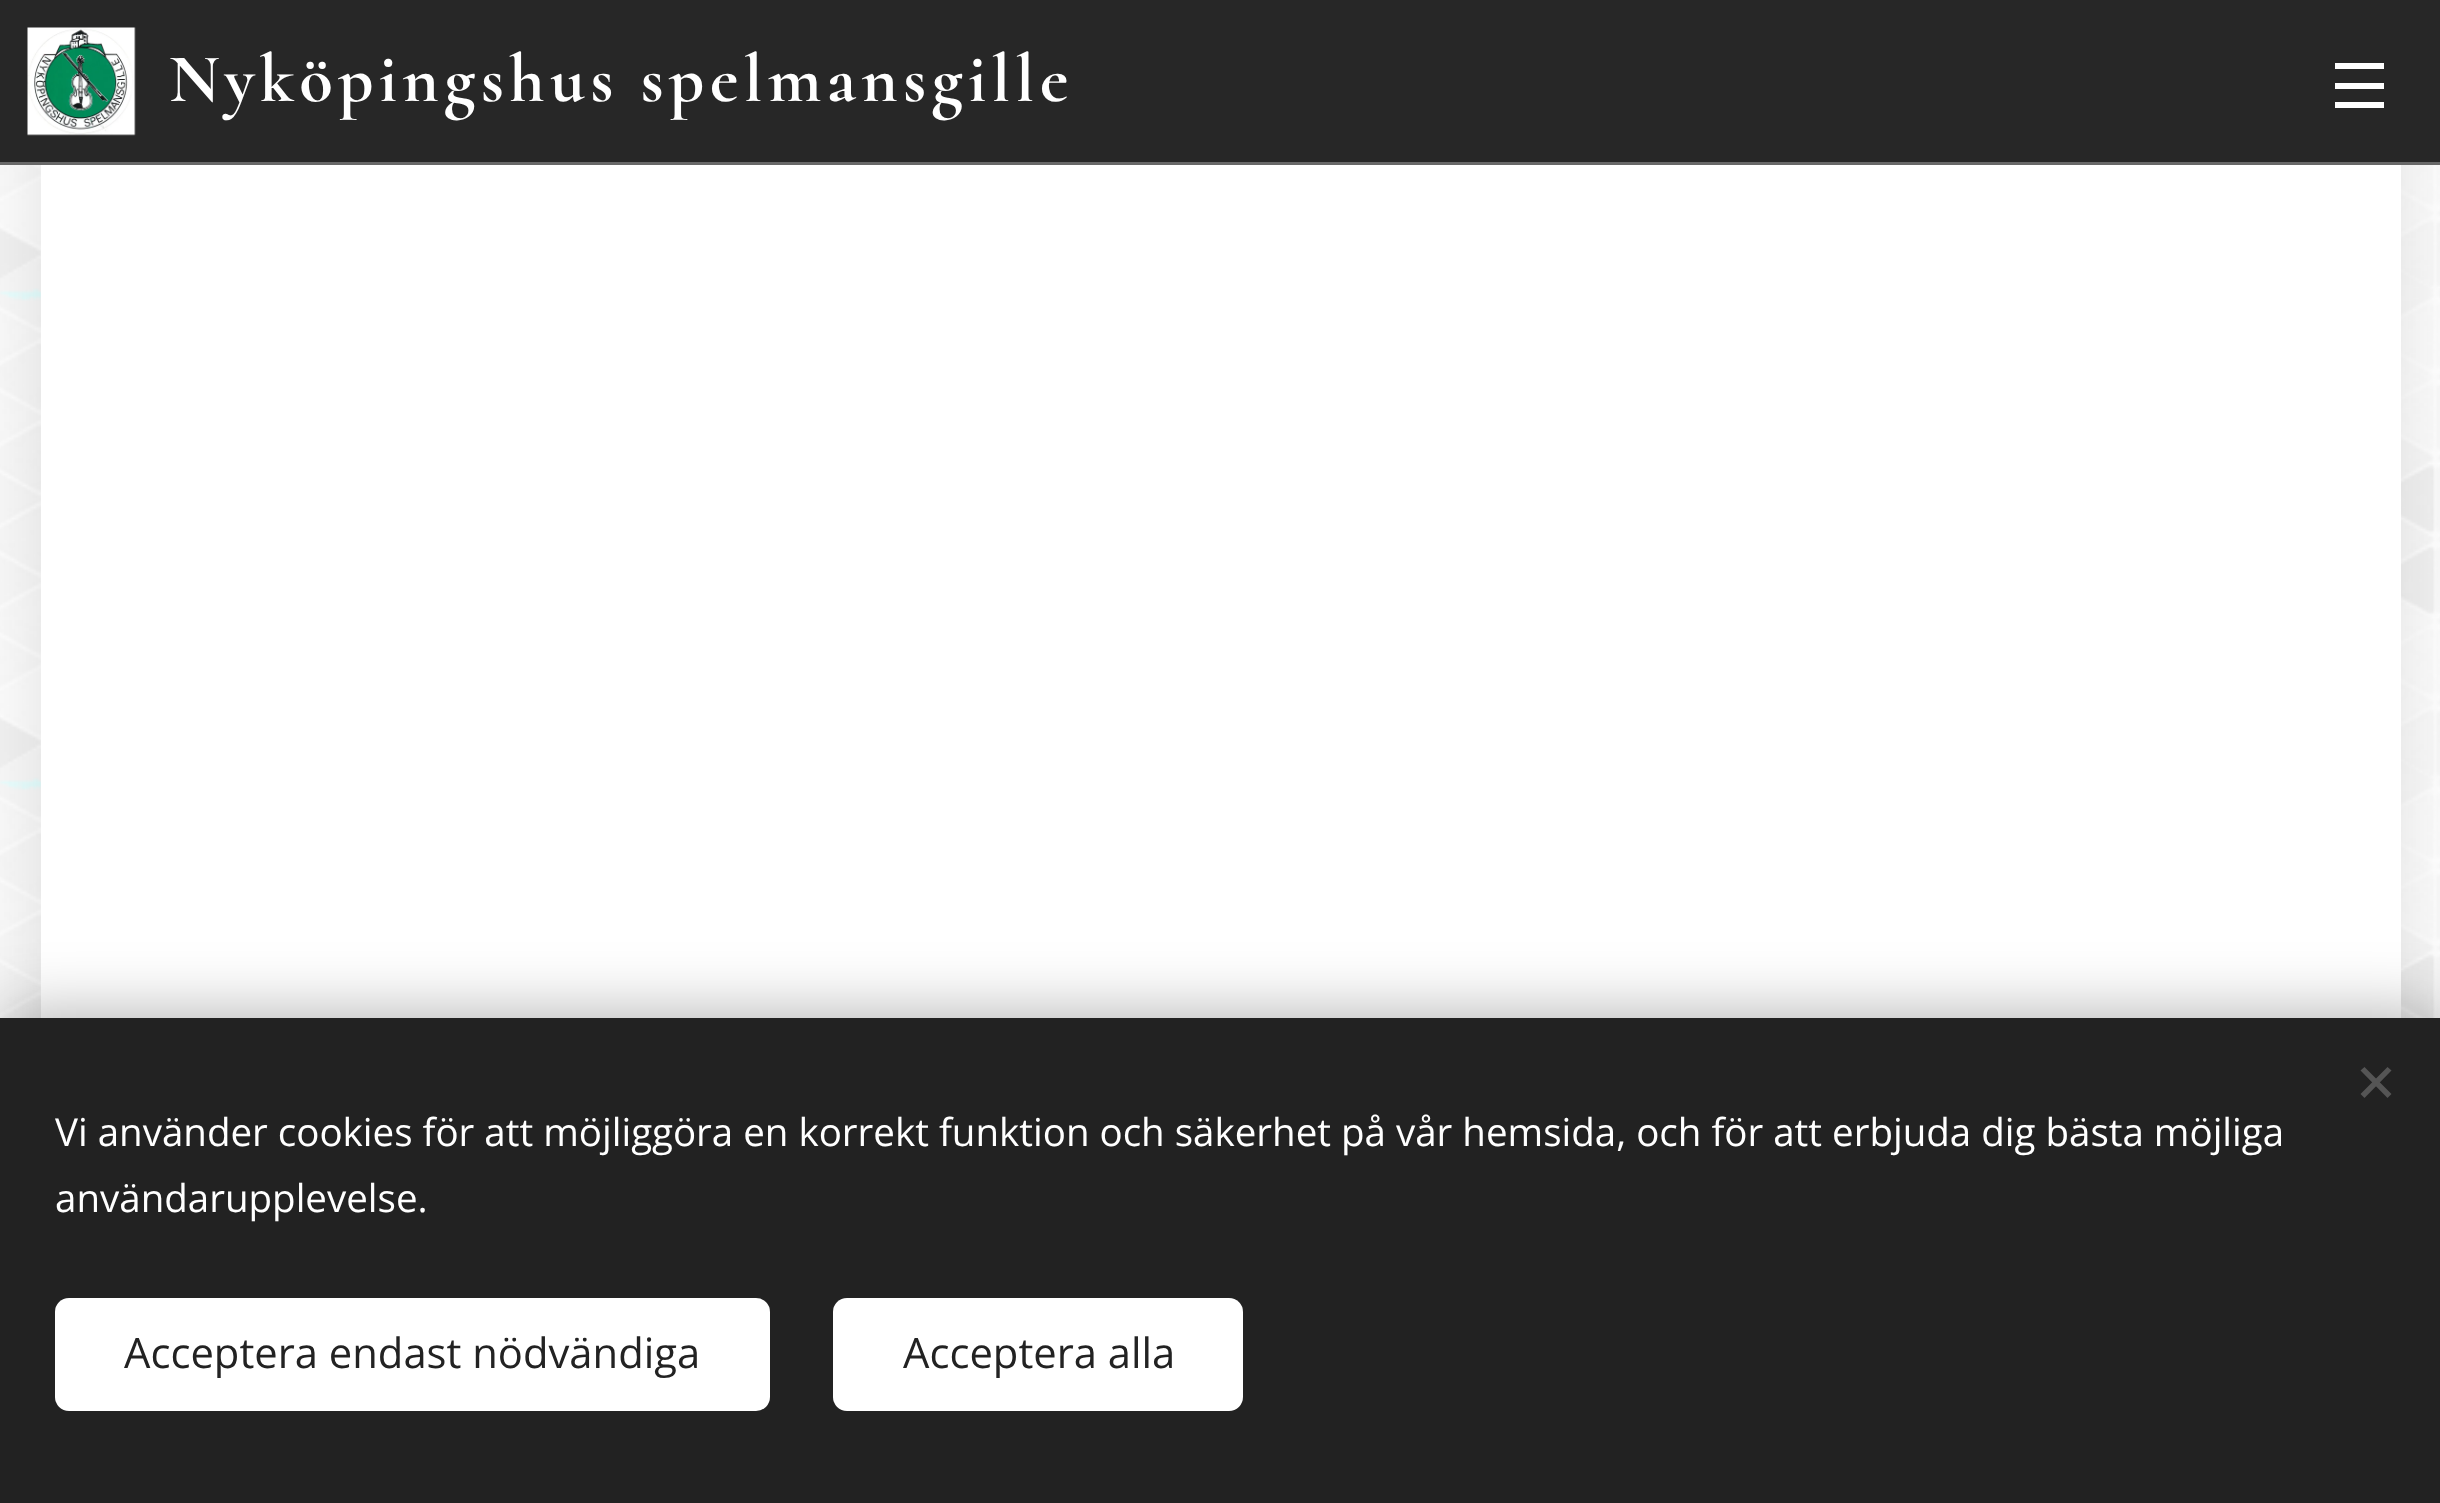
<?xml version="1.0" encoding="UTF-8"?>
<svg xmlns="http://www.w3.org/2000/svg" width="2440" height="1503">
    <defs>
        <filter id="blur1" x="-50%" y="-200%" width="200%" height="500%"><feGaussianBlur stdDeviation="34.5"/></filter>
    </defs>
    <rect width="100%" height="100%" fill="#FFFFFF"/>
    <image x="0" y="165" width="2440" height="853" href="img_01.png"/>
    <rect x="41" y="-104" width="2360" height="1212" fill="#000000" fill-opacity="0.1" filter="url(#blur1)"/>
    <rect x="41" y="165" width="2360" height="853" fill="#FFFFFF"/>
    <rect x="0" y="0" width="2440" height="162" fill="#272727"/>
    <rect x="0" y="162" width="2440" height="3" fill="#686868"/>
    <image x="27" y="27" width="109" height="109" href="img_02.png"/>
    <text x="169" y="101" font-family="Cormorant" font-size="68.75" font-weight="700" letter-spacing="5.5" fill="#FFFFFF">Nyköpingshus spelmansgille</text>
    <rect x="2335" y="83" width="49" height="6" fill="#FFFFFF"/>
    <rect x="2335" y="63" width="49" height="6" fill="#FFFFFF"/>
    <rect x="2335" y="102" width="49" height="6" fill="#FFFFFF"/>
    <rect x="0" y="1018" width="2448" height="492" fill="#000000" fill-opacity="0.33" filter="url(#blur1)"/>
    <rect x="0" y="1018" width="2440" height="485" fill="#222222"/>
    <path d="M 2360.5 1094 L 2387.5 1067 L 2391.5 1070.5 L 2364.5 1098 Z" fill="#555555"/>
    <path d="M 2364.5 1067 L 2391.5 1094 L 2387.5 1098 L 2360.5 1070.5 Z" fill="#555555"/>
    <text font-family="Open Sans" font-size="38.5" fill="#FFFFFF">
        <tspan x="55" y="1146">Vi använder cookies för att möjliggöra en korrekt funktion och säkerhet på vår hemsida, och för att erbjuda dig bästa möjliga</tspan>
        <tspan x="55" y="1212">användarupplevelse.</tspan>
    </text>
    <rect x="55" y="1298" width="715" height="113" rx="14" fill="#FFFFFF"/>
    <text x="124" y="1368" font-family="Open Sans" font-size="41.75" fill="#222222">Acceptera endast nödvändiga</text>
    <rect x="833" y="1298" width="410" height="113" rx="14" fill="#FFFFFF"/>
    <text x="903" y="1368" font-family="Open Sans" font-size="41.75" fill="#222222">Acceptera alla</text>
</svg>
